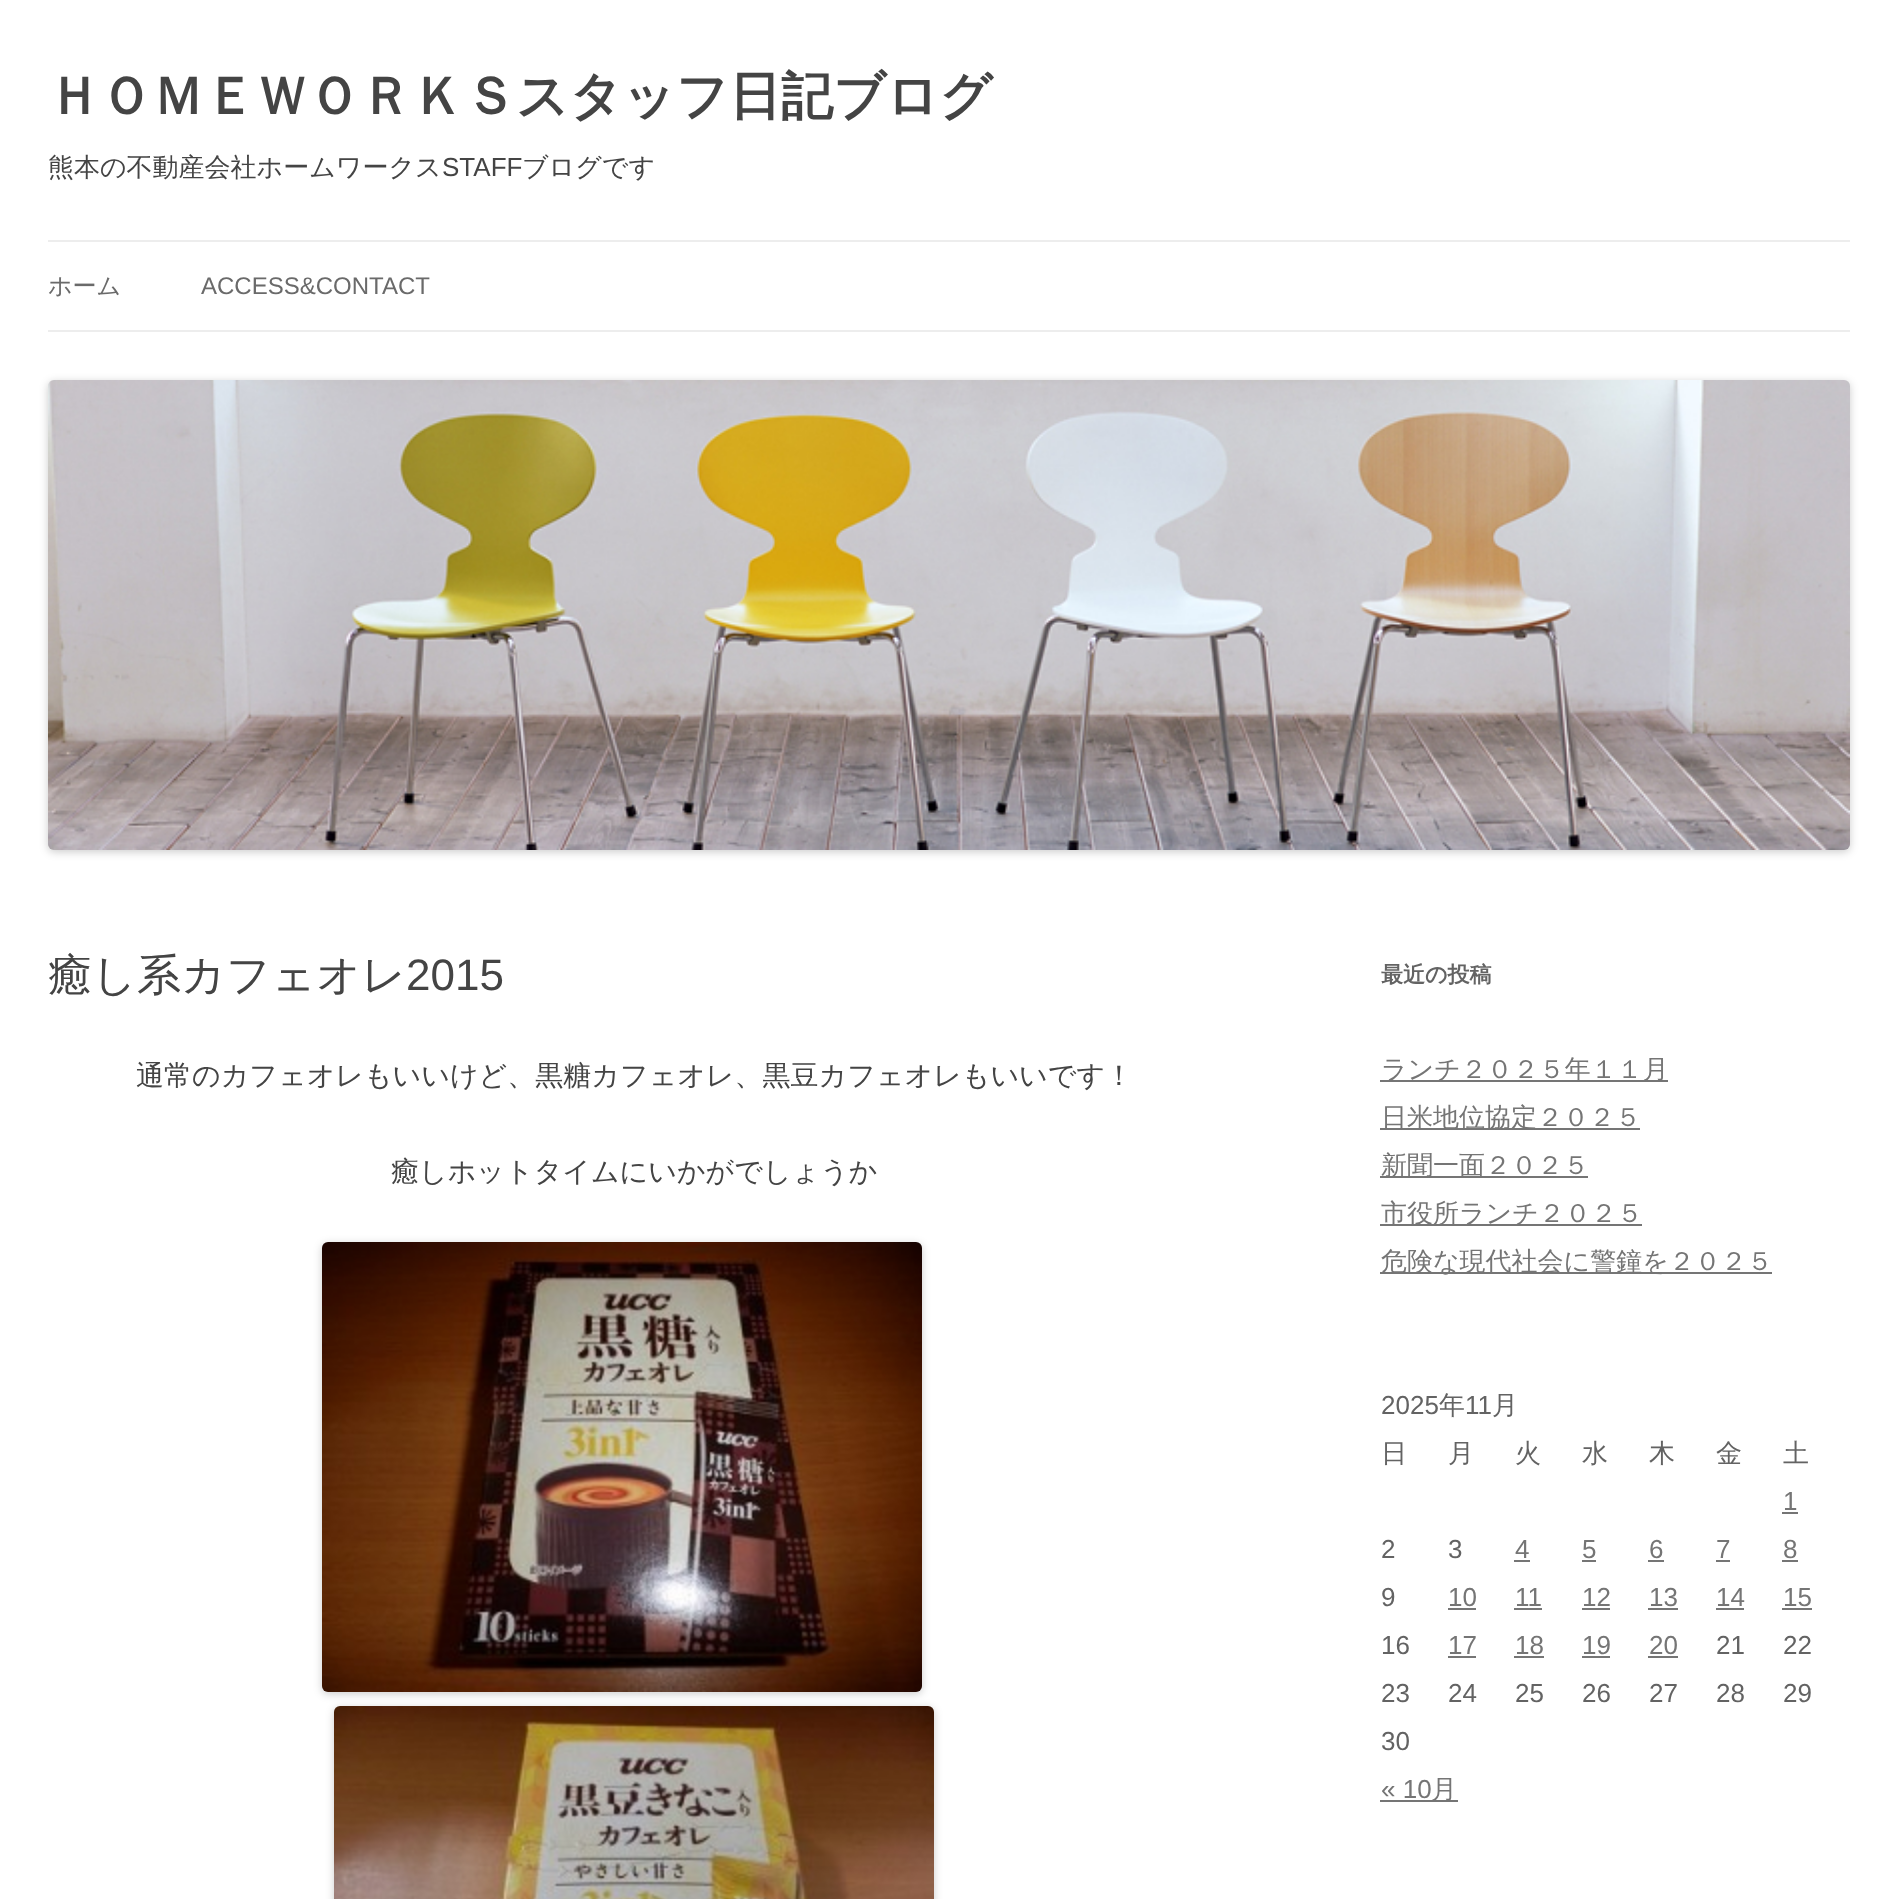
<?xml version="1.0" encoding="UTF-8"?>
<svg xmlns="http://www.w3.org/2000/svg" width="1897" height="1899">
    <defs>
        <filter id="blur1" x="-50%" y="-200%" width="200%" height="500%"><feGaussianBlur stdDeviation="4"/></filter>
    </defs>
    <rect width="100%" height="100%" fill="#FFFFFF"/>
    <text x="48" y="114" font-family="WenQuanYi Zen Hei" font-size="52" font-weight="700" fill="#444444">ＨＯＭＥＷＯＲＫＳスタッフ日記ブログ</text>
    <text x="48" y="176" font-family="WenQuanYi Zen Hei" font-size="26" font-weight="500" fill="#444444">熊本の不動産会社ホームワークス</text>
    <text x="442" y="176" font-family="Liberation Sans" font-size="26" fill="#444444">STAFF</text>
    <text x="522" y="176" font-family="WenQuanYi Zen Hei" font-size="26" font-weight="500" fill="#444444">ブログです</text>
    <rect x="48" y="240" width="1802" height="2" fill="#EDEDED"/>
    <rect x="48" y="330" width="1802" height="2" fill="#EDEDED"/>
    <text x="48" y="294" font-family="WenQuanYi Zen Hei" font-size="24" font-weight="500" fill="#6A6A6A">ホーム</text>
    <text x="201" y="294" font-family="Liberation Sans" font-size="24" fill="#6A6A6A">ACCESS&amp;CONTACT</text>
    <rect x="48" y="382" width="1802" height="470" rx="6" fill="#000000" fill-opacity="0.2" filter="url(#blur1)"/>
    <image x="48" y="380" width="1802" height="470" href="img_01.png"/>
    <text x="48" y="990" font-family="WenQuanYi Zen Hei" font-size="44" font-weight="500" fill="#444444">癒し系カフェオレ</text>
    <text x="406" y="990" font-family="Liberation Sans" font-size="44" fill="#444444">2015</text>
    <text x="136" y="1085" font-family="WenQuanYi Zen Hei" font-size="28" font-weight="500" fill="#444444">通常のカフェオレもいいけど、黒糖カフェオレ、黒豆カフェオレもいいです！</text>
    <text x="391" y="1181" font-family="WenQuanYi Zen Hei" font-size="28" font-weight="500" fill="#444444">癒しホットタイムにいかがでしょうか</text>
    <rect x="322" y="1244" width="600" height="450" rx="6" fill="#000000" fill-opacity="0.2" filter="url(#blur1)"/>
    <image x="322" y="1242" width="600" height="450" href="img_02.png"/>
    <rect x="334" y="1708" width="600" height="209" rx="6" fill="#000000" fill-opacity="0.2" filter="url(#blur1)"/>
    <image x="334" y="1706" width="600" height="193" href="img_03.png"/>
    <text x="1381" y="982" font-family="WenQuanYi Zen Hei" font-size="22" font-weight="700" fill="#636363">最近の投稿</text>
    <rect x="1380" y="1080" width="288" height="2" fill="#757575"/>
    <text x="1381" y="1078" font-family="WenQuanYi Zen Hei" font-size="26" font-weight="500" fill="#757575">ランチ２０２５年１１月</text>
    <rect x="1380" y="1128" width="260" height="2" fill="#757575"/>
    <text x="1381" y="1126" font-family="WenQuanYi Zen Hei" font-size="26" font-weight="500" fill="#757575">日米地位協定２０２５</text>
    <rect x="1380" y="1176" width="208" height="2" fill="#757575"/>
    <text x="1381" y="1174" font-family="WenQuanYi Zen Hei" font-size="26" font-weight="500" fill="#757575">新聞一面２０２５</text>
    <rect x="1380" y="1224" width="262" height="2" fill="#757575"/>
    <text x="1381" y="1222" font-family="WenQuanYi Zen Hei" font-size="26" font-weight="500" fill="#757575">市役所ランチ２０２５</text>
    <rect x="1380" y="1272" width="392" height="2" fill="#757575"/>
    <text x="1381" y="1270" font-family="WenQuanYi Zen Hei" font-size="26" font-weight="500" fill="#757575">危険な現代社会に警鐘を２０２５</text>
    <text x="1381" y="1414" font-family="Liberation Sans" font-size="26" fill="#636363">2025</text>
    <text x="1439" y="1414" font-family="WenQuanYi Zen Hei" font-size="26" font-weight="500" fill="#636363">年</text>
    <text x="1465" y="1414" font-family="Liberation Sans" font-size="26" fill="#636363">11</text>
    <text x="1492" y="1414" font-family="WenQuanYi Zen Hei" font-size="26" font-weight="500" fill="#636363">月</text>
    <text x="1381" y="1462" font-family="WenQuanYi Zen Hei" font-size="26" font-weight="500" fill="#636363">日</text>
    <text x="1448" y="1462" font-family="WenQuanYi Zen Hei" font-size="26" font-weight="500" fill="#636363">月</text>
    <text x="1515" y="1462" font-family="WenQuanYi Zen Hei" font-size="26" font-weight="500" fill="#636363">火</text>
    <text x="1582" y="1462" font-family="WenQuanYi Zen Hei" font-size="26" font-weight="500" fill="#636363">水</text>
    <text x="1649" y="1462" font-family="WenQuanYi Zen Hei" font-size="26" font-weight="500" fill="#636363">木</text>
    <text x="1716" y="1462" font-family="WenQuanYi Zen Hei" font-size="26" font-weight="500" fill="#636363">金</text>
    <text x="1783" y="1462" font-family="WenQuanYi Zen Hei" font-size="26" font-weight="500" fill="#636363">土</text>
    <text x="1783" y="1510" font-family="Liberation Sans" font-size="26" fill="#757575">1</text>
    <rect x="1782" y="1512" width="16" height="2" fill="#757575"/>
    <text x="1381" y="1558" font-family="Liberation Sans" font-size="26" fill="#636363">2</text>
    <text x="1448" y="1558" font-family="Liberation Sans" font-size="26" fill="#636363">3</text>
    <text x="1515" y="1558" font-family="Liberation Sans" font-size="26" fill="#757575">4</text>
    <rect x="1514" y="1560" width="16" height="2" fill="#757575"/>
    <text x="1582" y="1558" font-family="Liberation Sans" font-size="26" fill="#757575">5</text>
    <rect x="1582" y="1560" width="14" height="2" fill="#757575"/>
    <text x="1649" y="1558" font-family="Liberation Sans" font-size="26" fill="#757575">6</text>
    <rect x="1648" y="1560" width="16" height="2" fill="#757575"/>
    <text x="1716" y="1558" font-family="Liberation Sans" font-size="26" fill="#757575">7</text>
    <rect x="1716" y="1560" width="14" height="2" fill="#757575"/>
    <text x="1783" y="1558" font-family="Liberation Sans" font-size="26" fill="#757575">8</text>
    <rect x="1782" y="1560" width="16" height="2" fill="#757575"/>
    <text x="1381" y="1606" font-family="Liberation Sans" font-size="26" fill="#636363">9</text>
    <text x="1448" y="1606" font-family="Liberation Sans" font-size="26" fill="#757575">10</text>
    <rect x="1448" y="1608" width="28" height="2" fill="#757575"/>
    <text x="1515" y="1606" font-family="Liberation Sans" font-size="26" fill="#757575">11</text>
    <rect x="1514" y="1608" width="28" height="2" fill="#757575"/>
    <text x="1582" y="1606" font-family="Liberation Sans" font-size="26" fill="#757575">12</text>
    <rect x="1582" y="1608" width="28" height="2" fill="#757575"/>
    <text x="1649" y="1606" font-family="Liberation Sans" font-size="26" fill="#757575">13</text>
    <rect x="1648" y="1608" width="30" height="2" fill="#757575"/>
    <text x="1716" y="1606" font-family="Liberation Sans" font-size="26" fill="#757575">14</text>
    <rect x="1716" y="1608" width="28" height="2" fill="#757575"/>
    <text x="1783" y="1606" font-family="Liberation Sans" font-size="26" fill="#757575">15</text>
    <rect x="1782" y="1608" width="30" height="2" fill="#757575"/>
    <text x="1381" y="1654" font-family="Liberation Sans" font-size="26" fill="#636363">16</text>
    <text x="1448" y="1654" font-family="Liberation Sans" font-size="26" fill="#757575">17</text>
    <rect x="1448" y="1656" width="28" height="2" fill="#757575"/>
    <text x="1515" y="1654" font-family="Liberation Sans" font-size="26" fill="#757575">18</text>
    <rect x="1514" y="1656" width="30" height="2" fill="#757575"/>
    <text x="1582" y="1654" font-family="Liberation Sans" font-size="26" fill="#757575">19</text>
    <rect x="1582" y="1656" width="28" height="2" fill="#757575"/>
    <text x="1649" y="1654" font-family="Liberation Sans" font-size="26" fill="#757575">20</text>
    <rect x="1648" y="1656" width="30" height="2" fill="#757575"/>
    <text x="1716" y="1654" font-family="Liberation Sans" font-size="26" fill="#636363">21</text>
    <text x="1783" y="1654" font-family="Liberation Sans" font-size="26" fill="#636363">22</text>
    <text x="1381" y="1702" font-family="Liberation Sans" font-size="26" fill="#636363">23</text>
    <text x="1448" y="1702" font-family="Liberation Sans" font-size="26" fill="#636363">24</text>
    <text x="1515" y="1702" font-family="Liberation Sans" font-size="26" fill="#636363">25</text>
    <text x="1582" y="1702" font-family="Liberation Sans" font-size="26" fill="#636363">26</text>
    <text x="1649" y="1702" font-family="Liberation Sans" font-size="26" fill="#636363">27</text>
    <text x="1716" y="1702" font-family="Liberation Sans" font-size="26" fill="#636363">28</text>
    <text x="1783" y="1702" font-family="Liberation Sans" font-size="26" fill="#636363">29</text>
    <text x="1381" y="1750" font-family="Liberation Sans" font-size="26" fill="#636363">30</text>
    <text x="1381" y="1798" font-family="Liberation Sans" font-size="26" fill="#757575">« 10</text>
    <rect x="1380" y="1800" width="78" height="2" fill="#757575"/>
    <text x="1431" y="1798" font-family="WenQuanYi Zen Hei" font-size="26" font-weight="500" fill="#757575">月</text>
</svg>
